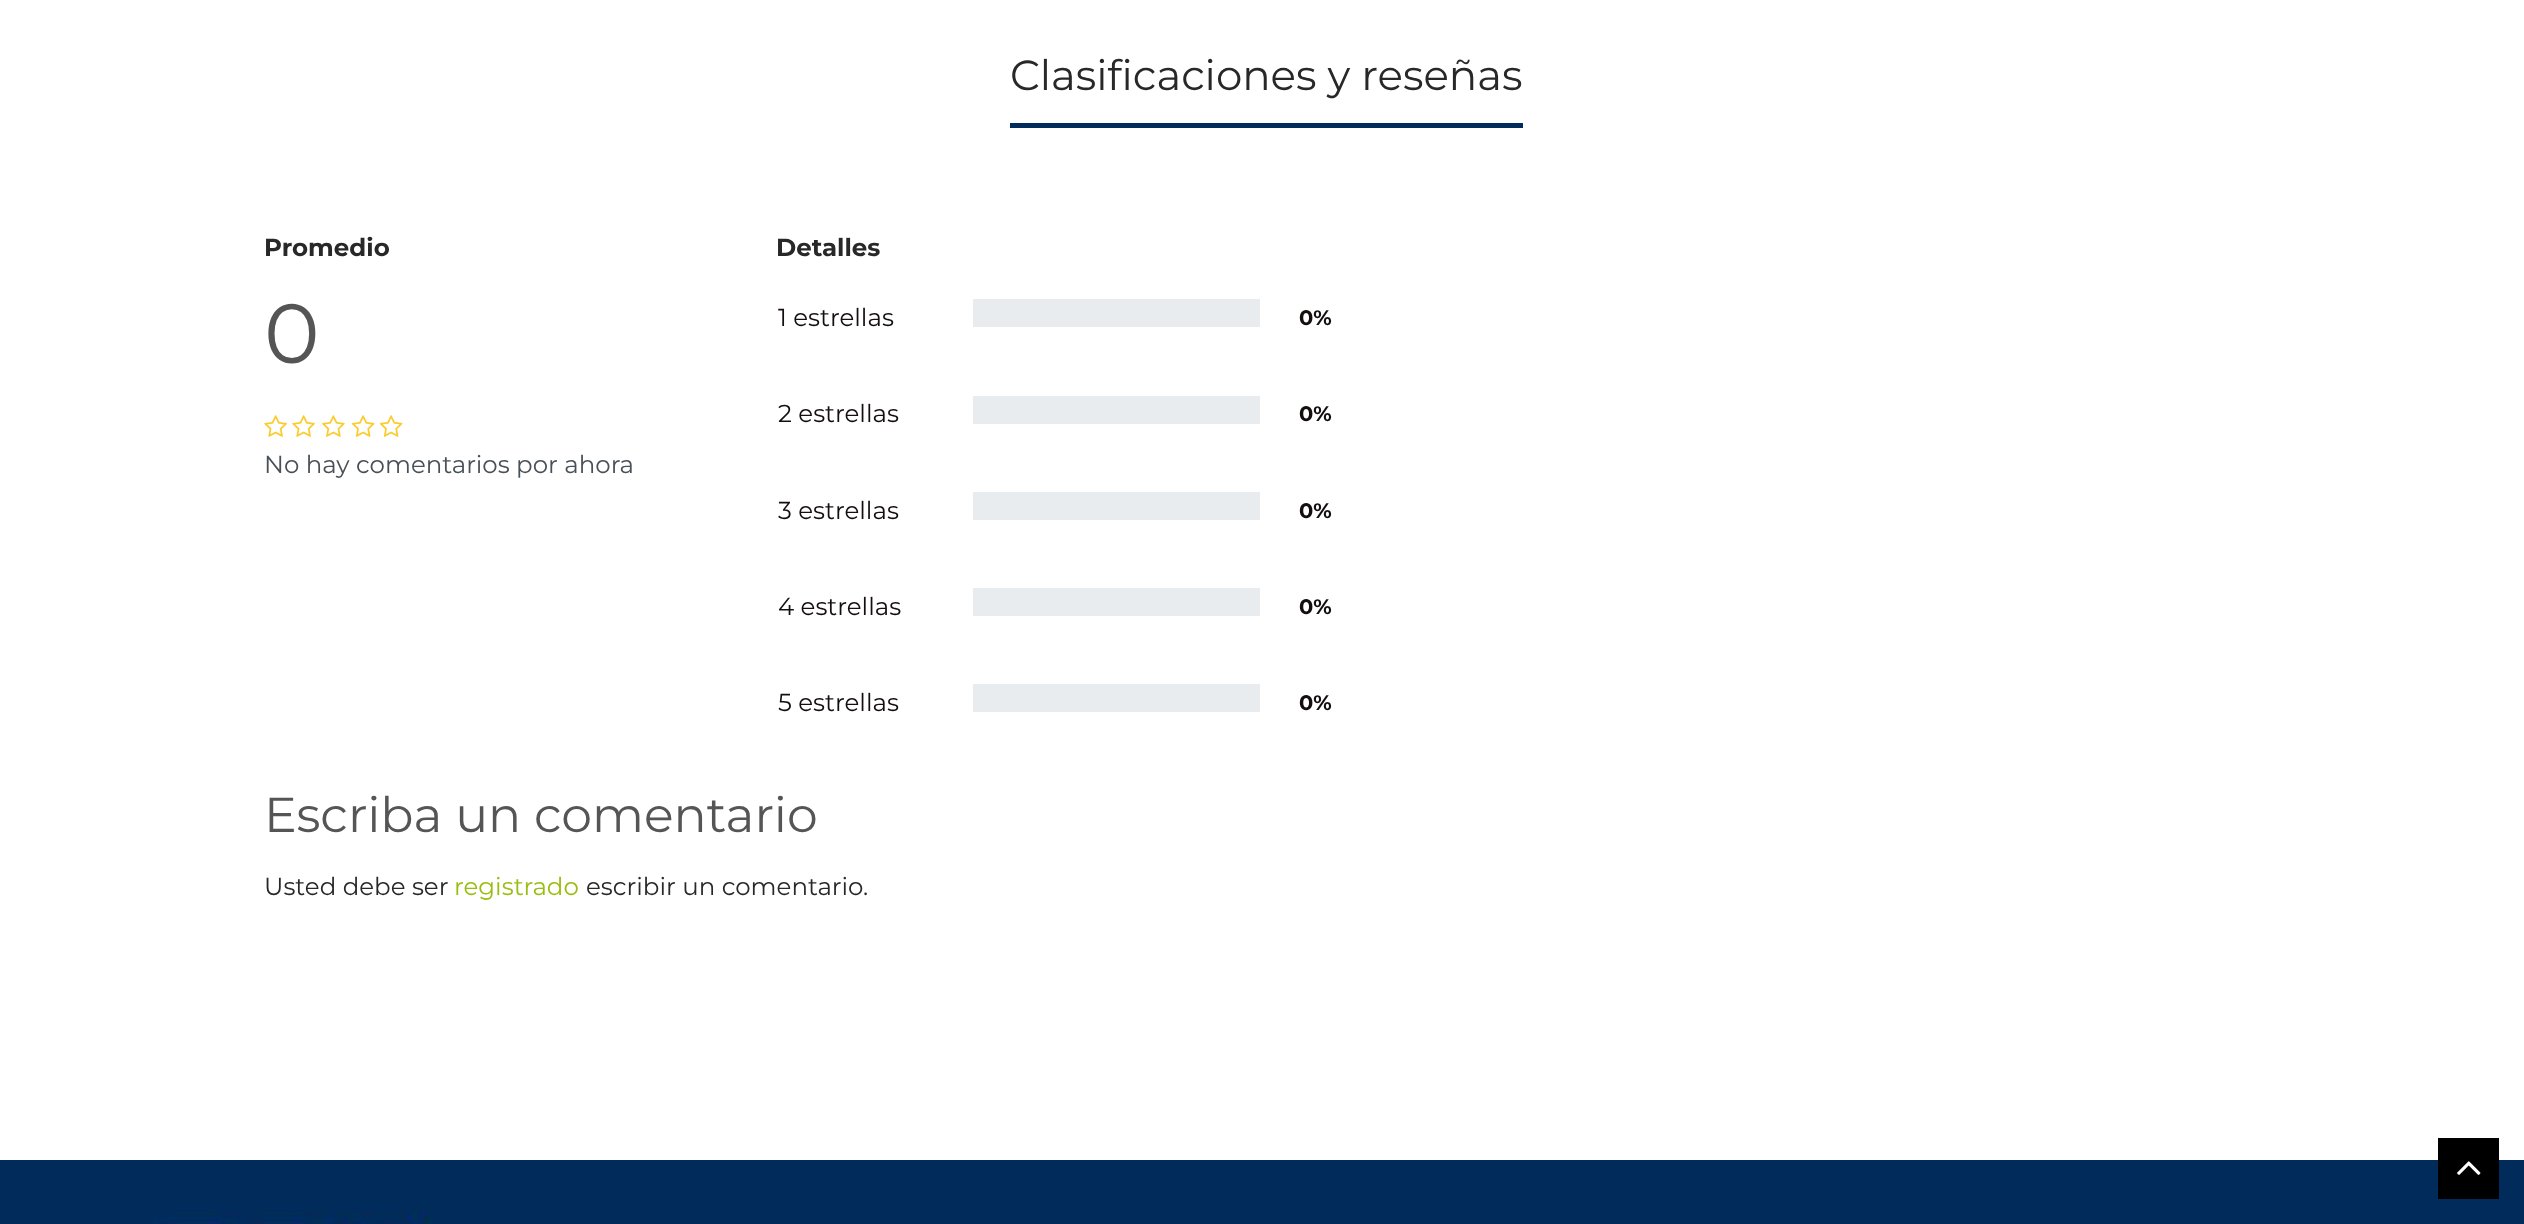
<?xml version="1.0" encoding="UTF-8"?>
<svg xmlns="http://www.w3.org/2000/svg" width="2524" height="1224">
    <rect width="100%" height="100%" fill="#FFFFFF"/>
    <rect x="1010" y="123" width="513" height="5" fill="#002B5B"/>
    <text x="1010" y="90" font-family="Montserrat" font-size="42" fill="#282828">Clasificaciones y reseñas</text>
    <text x="264" y="256" font-family="Montserrat" font-size="24.5" font-weight="700" fill="#282828">Promedio</text>
    <text x="264" y="363" font-family="Montserrat" font-size="84" fill="#555555">0</text>
    <image x="264" y="415" width="23" height="22" href="img_01.png"/>
    <image x="292" y="415" width="23" height="22" href="img_01.png"/>
    <image x="322" y="415" width="23" height="22" href="img_02.png"/>
    <image x="351" y="415" width="24" height="22" href="img_03.png"/>
    <image x="379" y="415" width="24" height="22" href="img_03.png"/>
    <text x="264" y="473" font-family="Montserrat" font-size="24.5" fill="#495057">No hay comentarios por ahora</text>
    <text x="776" y="256" font-family="Montserrat" font-size="24.5" font-weight="700" fill="#282828">Detalles</text>
    <text x="778" y="326" font-family="Montserrat" font-size="24.5" fill="#140E0E">1 estrellas</text>
    <rect x="973" y="299" width="287" height="28" fill="#E9ECEF"/>
    <text x="1299" y="325" font-family="Montserrat" font-size="21" font-weight="700" fill="#140E0E">0%</text>
    <text x="778" y="422" font-family="Montserrat" font-size="24.5" fill="#140E0E">2 estrellas</text>
    <rect x="973" y="396" width="287" height="28" fill="#E9ECEF"/>
    <text x="1299" y="421" font-family="Montserrat" font-size="21" font-weight="700" fill="#140E0E">0%</text>
    <text x="778" y="519" font-family="Montserrat" font-size="24.5" fill="#140E0E">3 estrellas</text>
    <rect x="973" y="492" width="287" height="28" fill="#E9ECEF"/>
    <text x="1299" y="518" font-family="Montserrat" font-size="21" font-weight="700" fill="#140E0E">0%</text>
    <text x="778" y="615" font-family="Montserrat" font-size="24.5" fill="#140E0E">4 estrellas</text>
    <rect x="973" y="588" width="287" height="28" fill="#E9ECEF"/>
    <text x="1299" y="614" font-family="Montserrat" font-size="21" font-weight="700" fill="#140E0E">0%</text>
    <text x="778" y="711" font-family="Montserrat" font-size="24.5" fill="#140E0E">5 estrellas</text>
    <rect x="973" y="684" width="287" height="28" fill="#E9ECEF"/>
    <text x="1299" y="710" font-family="Montserrat" font-size="21" font-weight="700" fill="#140E0E">0%</text>
    <text x="264" y="832" font-family="Montserrat" font-size="49" fill="#555555">Escriba un comentario</text>
    <text x="264" y="895" font-family="Montserrat" font-size="24.5" fill="#282828">Usted debe ser</text>
    <text x="454" y="895" font-family="Montserrat" font-size="24.5" fill="#98BE11">registrado</text>
    <text x="586" y="895" font-family="Montserrat" font-size="24.5" fill="#282828">escribir un comentario.</text>
    <rect x="0" y="1160" width="2524" height="64" fill="#002B5B"/>
    <rect x="2438" y="1138" width="61" height="61" fill="#000000"/>
    <image x="2457" y="1161" width="24" height="14" href="img_04.png"/>
    <image x="152" y="1212" width="280" height="12" href="img_05.png"/>
</svg>
